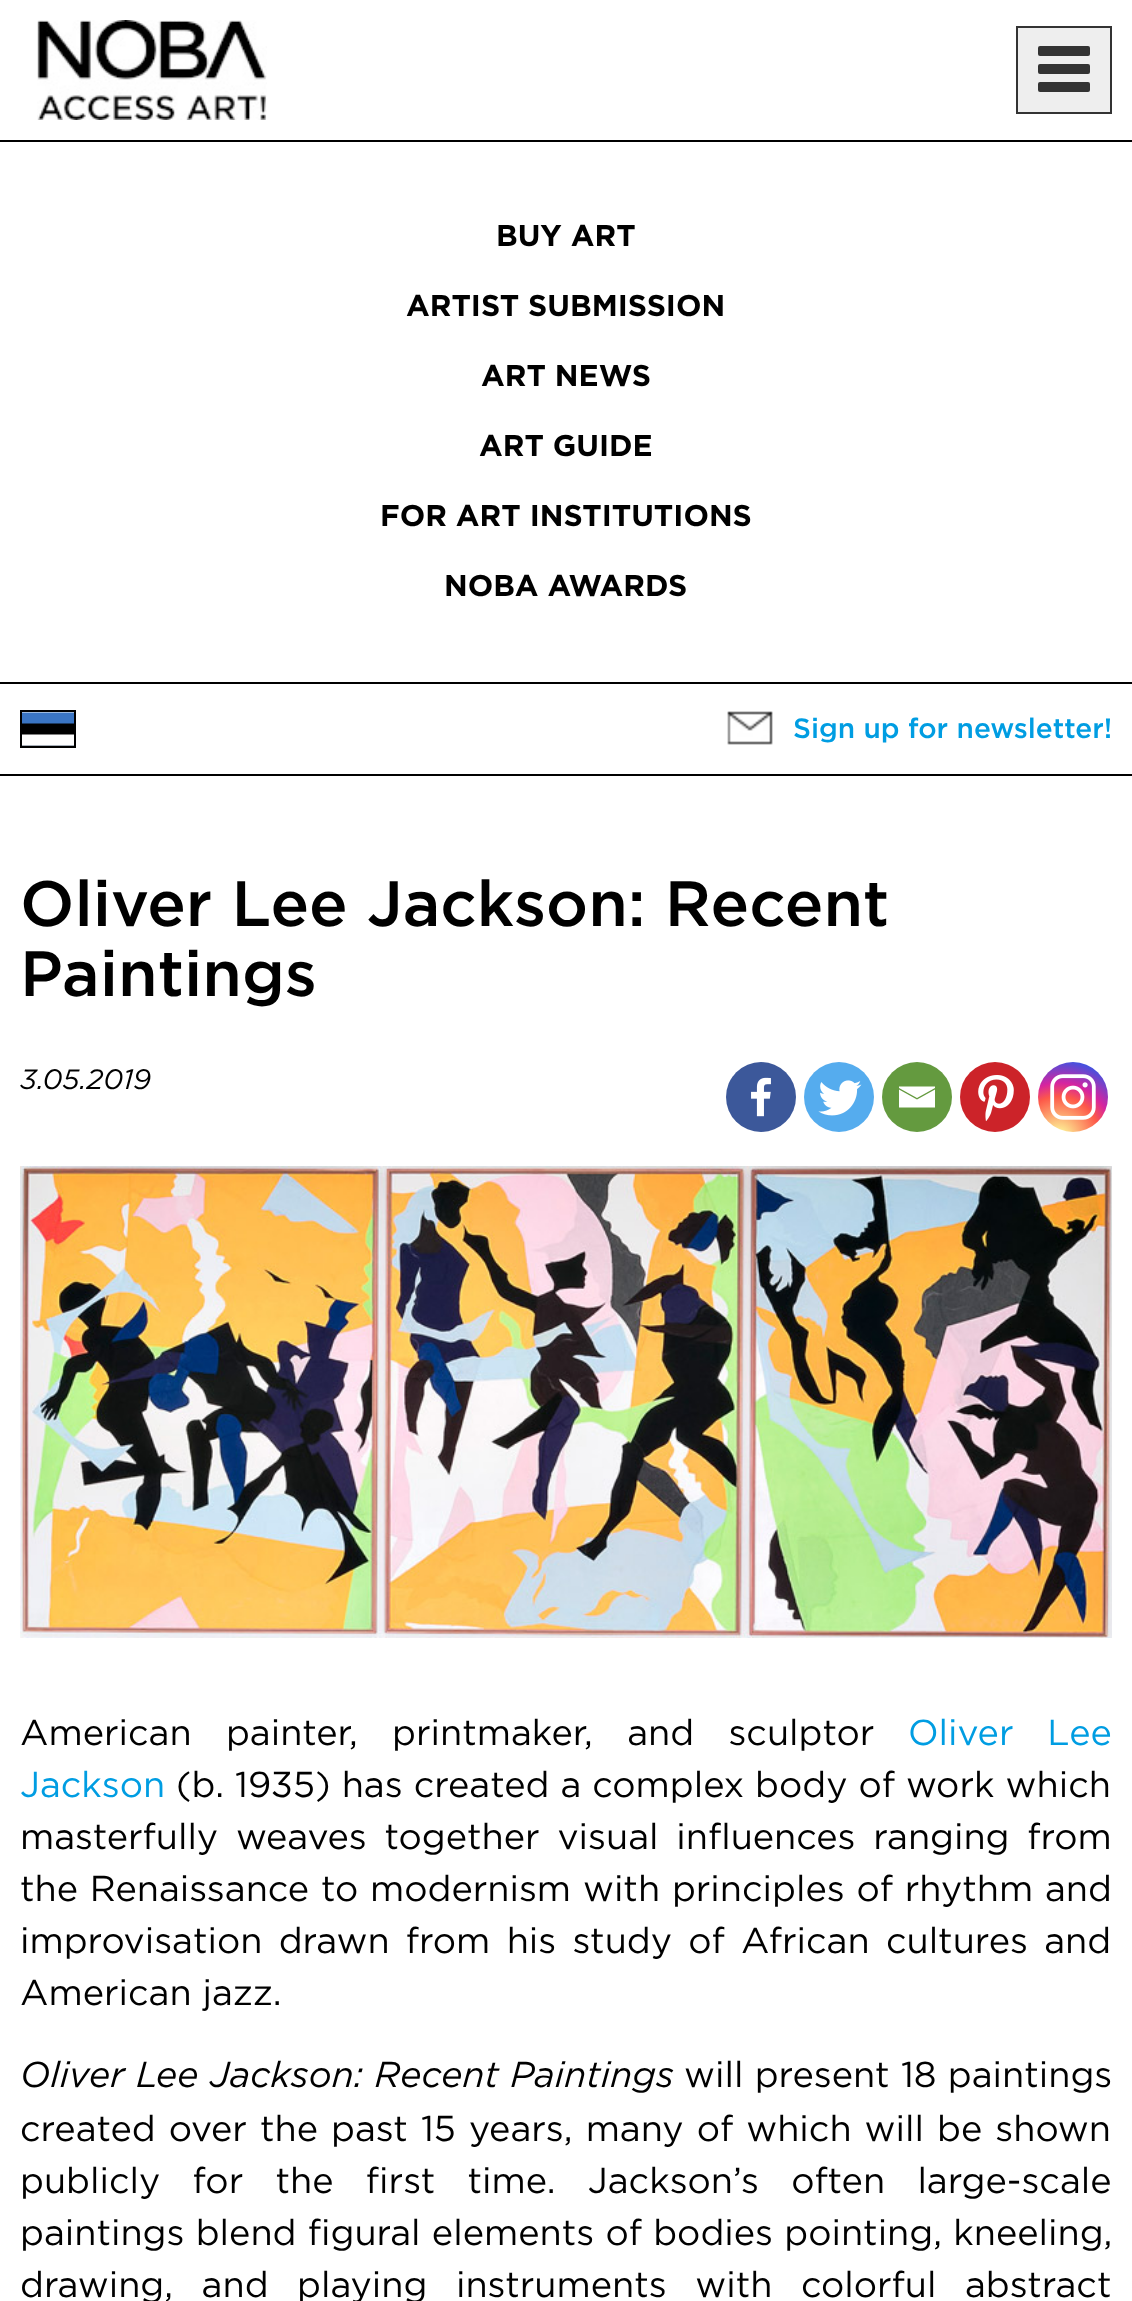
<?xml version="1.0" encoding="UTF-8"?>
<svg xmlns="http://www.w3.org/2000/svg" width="1132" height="2301">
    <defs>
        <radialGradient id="g1" gradientUnits="userSpaceOnUse" cx="1059" cy="1137" r="90"><stop offset="0" stop-color="#FDF497"/><stop offset="0.05" stop-color="#FDF497"/><stop offset="0.45" stop-color="#FD5949"/><stop offset="0.6" stop-color="#D6249F"/><stop offset="0.9" stop-color="#285AEB"/></radialGradient>
    </defs>
    <rect width="100%" height="100%" fill="#FFFFFF"/>
    <rect x="0" y="140" width="1132" height="2" fill="#000000"/>
    <image x="37" y="20" width="230" height="100" href="img_01.png"/>
    <rect x="1017" y="27" width="94" height="86" fill="#EEEEEE" stroke="#333333" stroke-width="2"/>
    <rect x="1038" y="46" width="52" height="10" rx="2" fill="#333333"/>
    <rect x="1038" y="64" width="52" height="10" rx="2" fill="#333333"/>
    <rect x="1038" y="82" width="52" height="10" rx="2" fill="#333333"/>
    <rect x="0" y="682" width="1132" height="2" fill="#000000"/>
    <text x="496" y="246" font-family="Gotham" font-size="30" font-weight="700" fill="#000000">BUY ART</text>
    <text x="406" y="316" font-family="Gotham" font-size="30" font-weight="700" fill="#000000">ARTIST SUBMISSION</text>
    <text x="481" y="386" font-family="Gotham" font-size="30" font-weight="700" fill="#000000">ART NEWS</text>
    <text x="479" y="456" font-family="Gotham" font-size="30" font-weight="700" fill="#000000">ART GUIDE</text>
    <text x="380" y="526" font-family="Gotham" font-size="30" font-weight="700" fill="#000000">FOR ART INSTITUTIONS</text>
    <text x="444" y="596" font-family="Gotham" font-size="30" font-weight="700" fill="#000000">NOBA AWARDS</text>
    <rect x="0" y="774" width="1132" height="2" fill="#000000"/>
    <image x="22" y="712" width="52" height="34" href="img_02.png"/>
    <rect x="21" y="711" width="54" height="36" fill="none" stroke="#000000" stroke-width="2"/>
    <image x="727" y="711" width="46" height="34" href="img_03.png"/>
    <text x="793" y="738" font-family="Gotham" font-size="28" font-weight="500" fill="#009DE2">Sign up for newsletter!</text>
    <text font-family="Gotham" font-size="64" font-weight="500" fill="#000000">
        <tspan x="20" y="926">Oliver Lee Jackson: Recent</tspan>
        <tspan x="20" y="996">Paintings</tspan>
    </text>
    <text x="20" y="1089" font-family="Gotham" font-size="28" font-style="italic" fill="#000000">3.05.2019</text>
    <circle cx="761" cy="1097" r="35" fill="#3C589A"/>
    <image x="751" y="1077" width="20" height="40" href="img_04.png"/>
    <circle cx="839" cy="1097" r="35" fill="#55ACEE"/>
    <image x="818" y="1080" width="44" height="36" href="img_05.png"/>
    <circle cx="917" cy="1097" r="35" fill="#649A3F"/>
    <path d="M 897.5 1086.5 H 935 V 1088 L 917 1098 L 899 1088 V 1086.5 M 899 1089.5 L 917 1099.5 L 935 1089.5 V 1107.5 H 899 V 1089.5" fill="#FFFFFF"/>
    <circle cx="995" cy="1097" r="35" fill="#CC2329"/>
    <image x="978" y="1075" width="36" height="46" href="img_06.png"/>
    <circle cx="1073" cy="1097" r="35" fill="url(#g1)"/>
    <image x="1050" y="1074" width="46" height="46" href="img_07.png"/>
    <image x="20" y="1166" width="1092" height="472" href="img_08.png"/>
    <text x="20" y="1745" word-spacing="23.5" font-family="Gotham" font-size="36" fill="#000000">American painter, printmaker, and sculptor</text>
    <text x="908" y="1745" word-spacing="23" font-family="Gotham" font-size="36" fill="#009DE2">Oliver Lee</text>
    <text x="20" y="1797" font-family="Gotham" font-size="36" fill="#009DE2">Jackson</text>
    <text x="176" y="1797" word-spacing="0.25" font-family="Gotham" font-size="36" fill="#000000">(b. 1935) has created a complex body of work which</text>
    <text font-family="Gotham" font-size="36" fill="#000000">
        <tspan x="20" y="1849" word-spacing="7">masterfully weaves together visual influences ranging from</tspan>
        <tspan x="20" y="1901" word-spacing="1">the Renaissance to modernism with principles of rhythm and</tspan>
        <tspan x="20" y="1953" word-spacing="5.5">improvisation drawn from his study of African cultures and</tspan>
        <tspan x="20" y="2005">American jazz.</tspan>
    </text>
    <text x="20" y="2087" word-spacing="0.5" font-family="Gotham" font-size="36" font-style="italic" fill="#000000">Oliver Lee Jackson: Recent Paintings</text>
    <text x="684" y="2087" word-spacing="0.5" font-family="Gotham" font-size="36" fill="#000000">will present 18 paintings</text>
    <text font-family="Gotham" font-size="36" fill="#000000">
        <tspan x="20" y="2141" word-spacing="2.25">created over the past 15 years, many of which will be shown</tspan>
        <tspan x="20" y="2193" word-spacing="21.5">publicly for the first time. Jackson’s often large-scale</tspan>
        <tspan x="20" y="2245" word-spacing="0.5">paintings blend figural elements of bodies pointing, kneeling,</tspan>
        <tspan x="20" y="2297" word-spacing="17.75">drawing, and playing instruments with colorful abstract</tspan>
    </text>
</svg>
